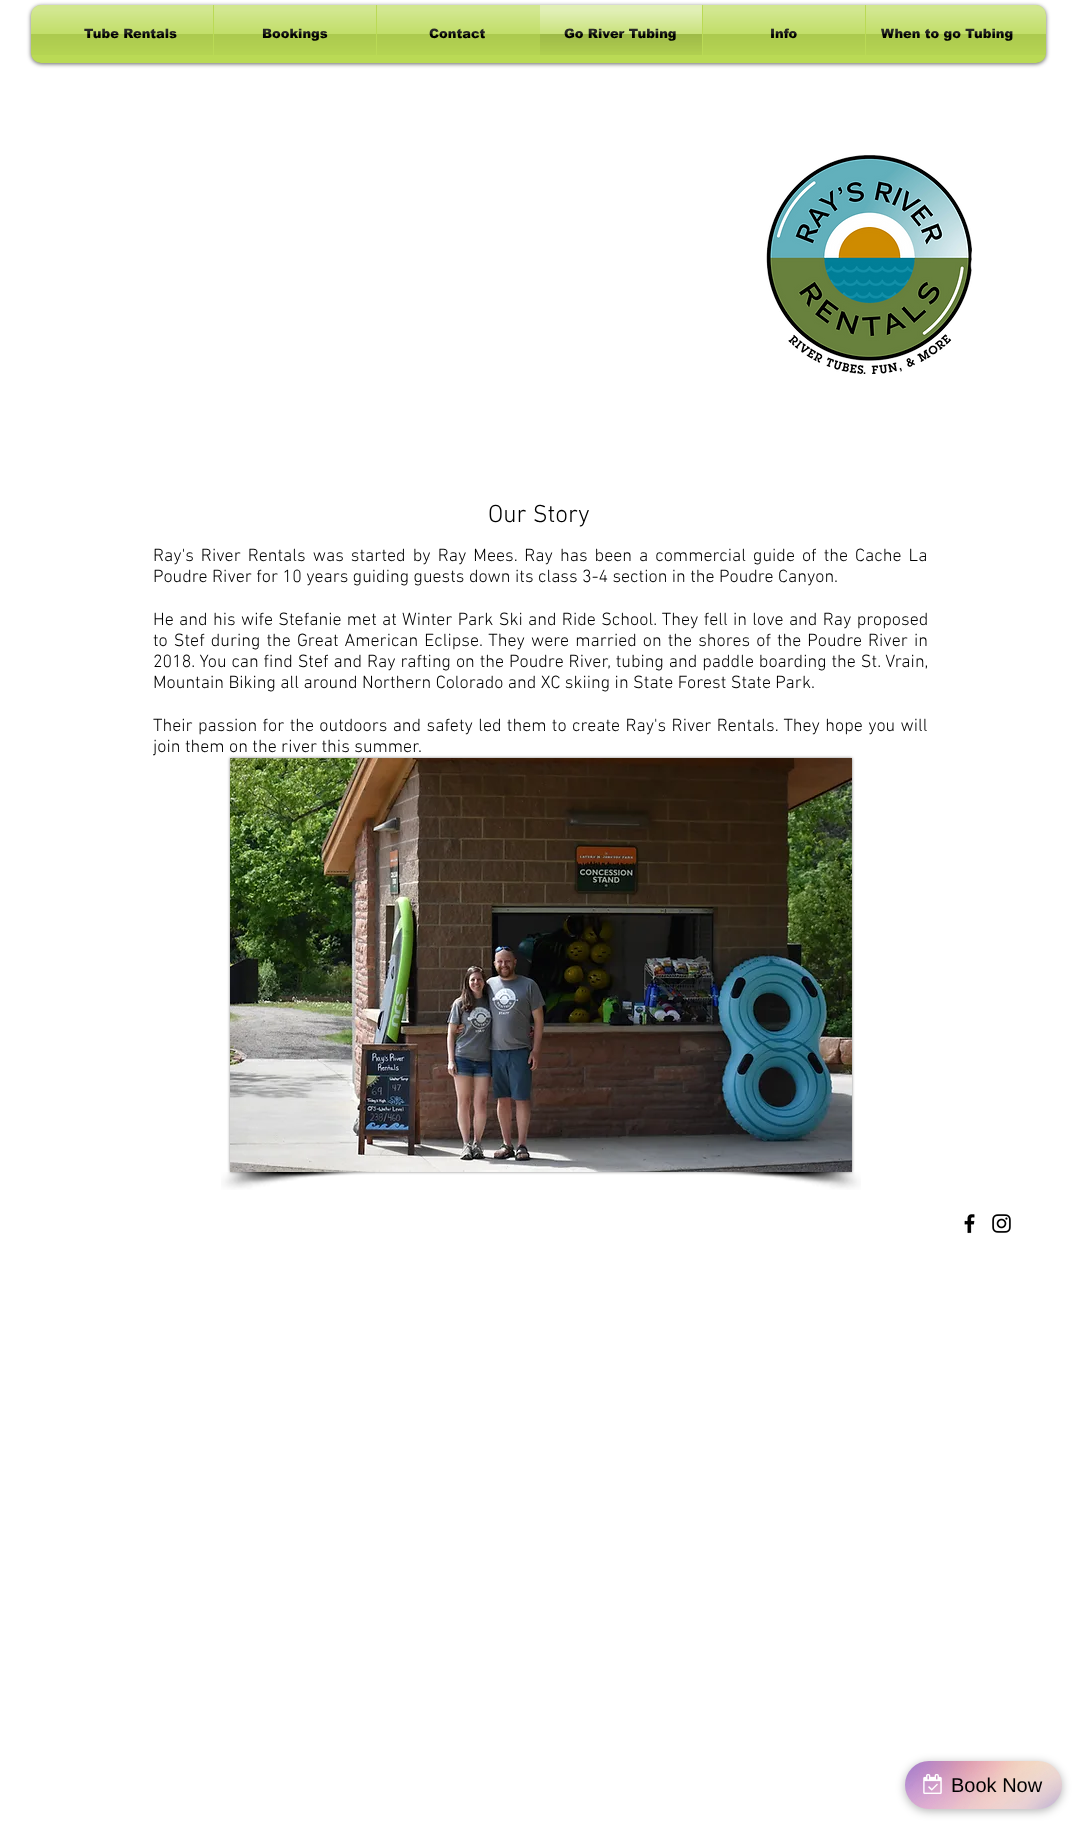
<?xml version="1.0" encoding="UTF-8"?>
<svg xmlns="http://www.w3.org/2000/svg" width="1082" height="1829">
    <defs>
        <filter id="blur1" x="-50%" y="-200%" width="200%" height="500%"><feGaussianBlur stdDeviation="2"/></filter>
        <filter id="blur2" x="-50%" y="-200%" width="200%" height="500%"><feGaussianBlur stdDeviation="1.5"/></filter>
        <filter id="blur3" x="-50%" y="-200%" width="200%" height="500%"><feGaussianBlur stdDeviation="5"/></filter>
    </defs>
    <rect width="100%" height="100%" fill="#FFFFFF"/>
    <rect x="31" y="6" width="1015" height="58" rx="10" fill="#000000" fill-opacity="0.6" filter="url(#blur1)"/>
    <rect x="31" y="5" width="1015" height="58" rx="10" fill="#BADA55"/>
    <image x="31" y="5" width="1015" height="50" href="img_01.png"/>
    <rect x="50" y="5" width="489" height="50" fill="#BADA55"/>
    <text x="84" y="38" font-family="arial" font-size="13" font-weight="900" fill="#000000">Tube Rentals</text>
    <image x="50" y="5" width="163" height="50" href="img_02.png"/>
    <text x="262" y="38" font-family="arial" font-size="13" font-weight="900" fill="#000000">Bookings</text>
    <image x="214" y="5" width="162" height="50" href="img_03.png"/>
    <text x="429" y="38" font-family="arial" font-size="13" font-weight="900" fill="#000000">Contact</text>
    <image x="377" y="5" width="162" height="50" href="img_04.png"/>
    <text x="564" y="38" font-family="arial" font-size="13" font-weight="900" fill="#000000">Go River Tubing</text>
    <image x="540" y="5" width="162" height="50" href="img_05.png"/>
    <rect x="702" y="5" width="326" height="50" fill="#BADA55"/>
    <text x="770" y="38" font-family="arial" font-size="13" font-weight="900" fill="#000000">Info</text>
    <image x="703" y="5" width="162" height="50" href="img_06.png"/>
    <text x="881" y="38" font-family="arial" font-size="13" font-weight="900" fill="#000000">When to go Tubing</text>
    <image x="866" y="5" width="162" height="50" href="img_07.png"/>
    <image x="766" y="155" width="206" height="219" href="img_08.png"/>
    <text x="488" y="522" font-family="'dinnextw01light'" font-size="25" font-weight="300" fill="#000000">Our Story</text>
    <text font-family="'dinnextw01light'" font-size="18" font-weight="300" fill="#000000">
        <tspan x="153" y="561" word-spacing="2.6">Ray's River Rentals was started by Ray Mees. Ray has been a commercial guide of the Cache La</tspan>
        <tspan x="153" y="582">Poudre River for 10 years guiding guests down its class 3-4 section in the Poudre Canyon.</tspan>
    </text>
    <text font-family="'dinnextw01light'" font-size="18" font-weight="300" fill="#000000">
        <tspan x="153" y="625" word-spacing="0.9">He and his wife Stefanie met at Winter Park Ski and Ride School. They fell in love and Ray proposed</tspan>
        <tspan x="153" y="646" word-spacing="1.6">to Stef during the Great American Eclipse. They were married on the shores of the Poudre River in</tspan>
        <tspan x="153" y="667" word-spacing="0.5">2018. You can find Stef and Ray rafting on the Poudre River, tubing and paddle boarding the St. Vrain,</tspan>
        <tspan x="153" y="688">Mountain Biking all around Northern Colorado and XC skiing in State Forest State Park.</tspan>
    </text>
    <text font-family="'dinnextw01light'" font-size="18" font-weight="300" fill="#000000">
        <tspan x="153" y="731" word-spacing="0.9">Their passion for the outdoors and safety led them to create Ray's River Rentals. They hope you will</tspan>
        <tspan x="153" y="752">join them on the river this summer.</tspan>
    </text>
    <rect x="230" y="758" width="622" height="414" fill="#000000" fill-opacity="0.5" filter="url(#blur2)"/>
    <image x="230" y="758" width="622" height="414" href="img_09.png"/>
    <image x="221" y="1172" width="154" height="18" href="img_10.png"/>
    <image x="707" y="1172" width="154" height="18" href="img_11.png"/>
    <image x="964" y="1214" width="11" height="20" href="img_12.png"/>
    <image x="992" y="1214" width="19" height="19" href="img_13.png"/>
    <rect x="905" y="1763" width="157" height="48" rx="24" fill="#000000" fill-opacity="0.3" filter="url(#blur3)"/>
    <image x="905" y="1761" width="157" height="48" href="img_14.png"/>
    <image x="923" y="1774" width="19" height="20" href="img_15.png"/>
    <text x="951" y="1792" font-family="Liberation Sans" font-size="20" fill="#000000">Book Now</text>
</svg>
